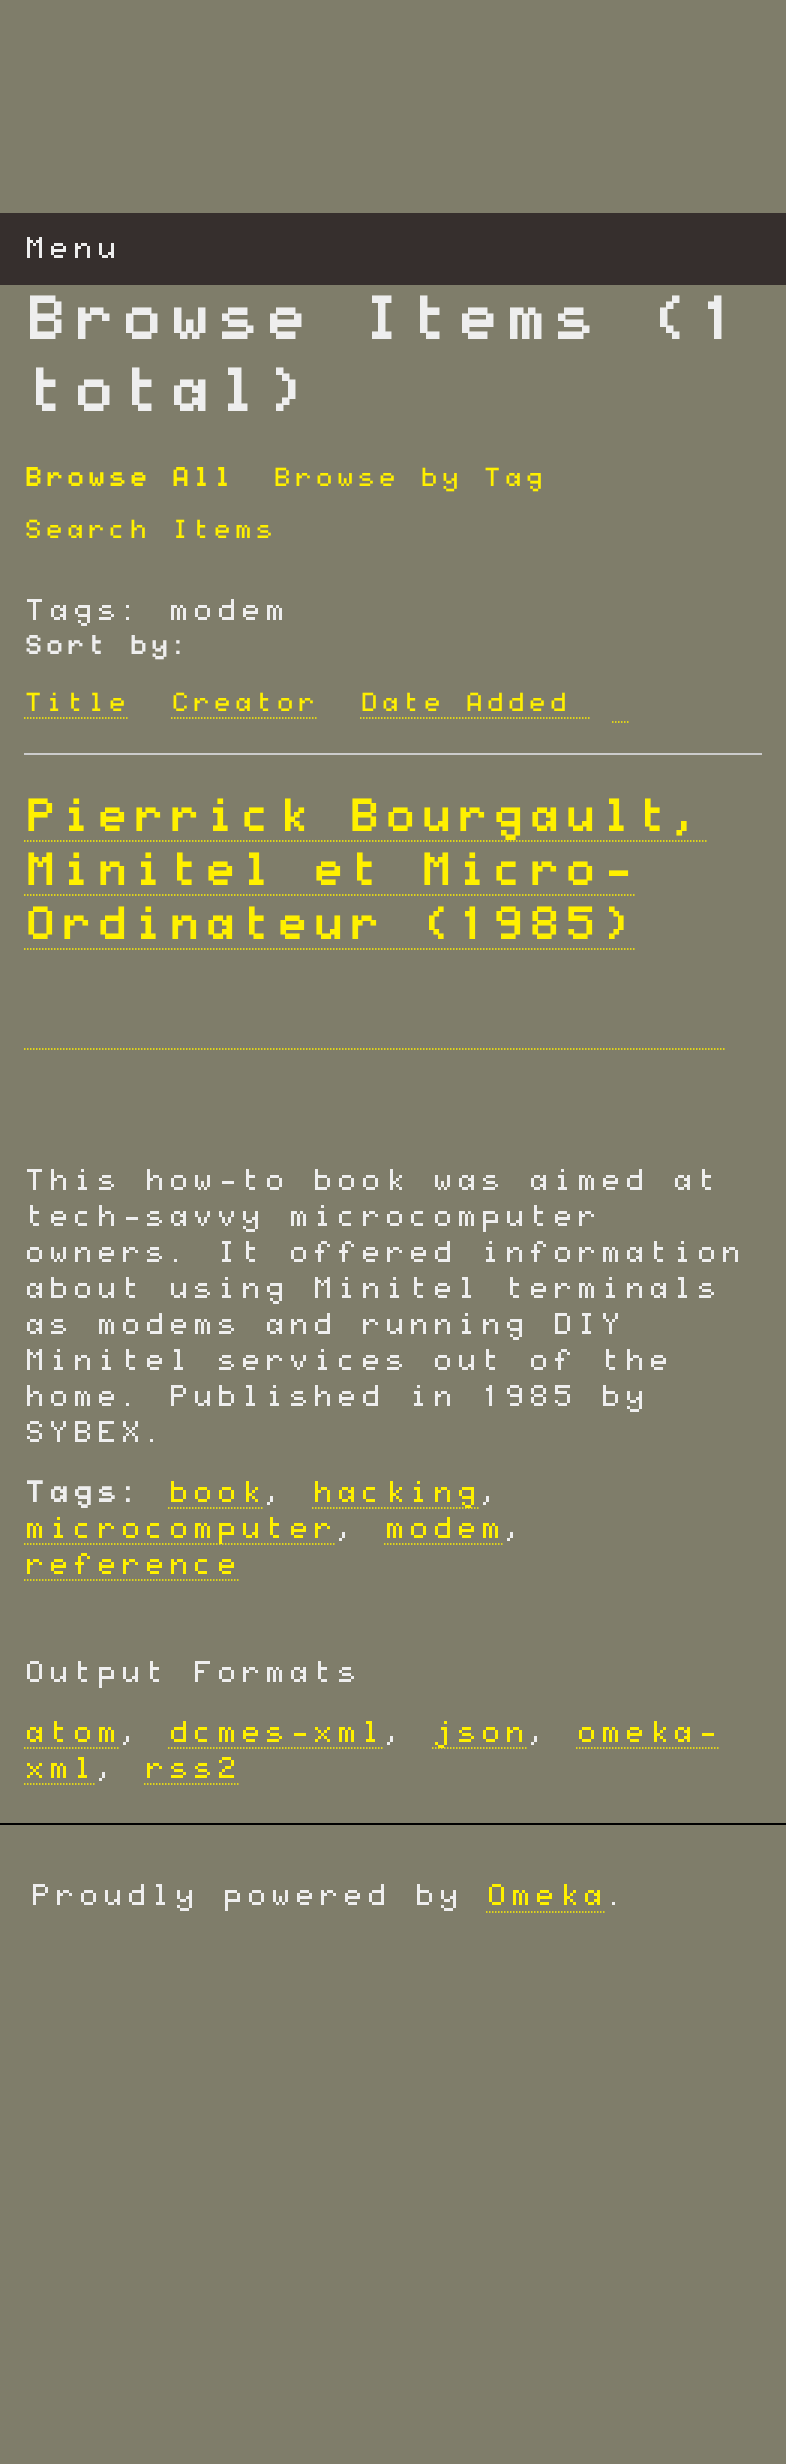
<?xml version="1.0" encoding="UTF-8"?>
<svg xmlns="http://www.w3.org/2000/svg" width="786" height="2464">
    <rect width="100%" height="100%" fill="#7F7D6A"/>
    <rect x="0" y="213" width="786" height="72" fill="#362F2D"/>
    <text x="24" y="258" font-family="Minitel" font-size="24" fill="#EEEEEE">Menu</text>
    <text font-family="Minitel" font-size="48" font-weight="700" fill="#EEEEEE">
        <tspan x="24" y="339">Browse Items (1</tspan>
        <tspan x="24" y="411">total)</tspan>
    </text>
    <text x="24" y="486" font-family="Minitel" font-size="21" font-weight="700" fill="#FFF000">Browse All</text>
    <text x="273" y="486" font-family="Minitel" font-size="21" fill="#FFF000">Browse by Tag</text>
    <text x="24" y="538" font-family="Minitel" font-size="21" fill="#FFF000">Search Items</text>
    <text x="24" y="620" font-family="Minitel" font-size="24" fill="#EEEEEE">Tags: modem</text>
    <text x="24" y="654" font-family="Minitel" font-size="21" font-weight="700" fill="#EEEEEE">Sort by:</text>
    <text x="24" y="711" font-family="Minitel" font-size="21" fill="#FFF000">Title</text>
    <path d="M 24 718 H 129" fill="none" stroke="#FFF000" stroke-width="1.5" stroke-dasharray="1.5 1.5"/>
    <text x="171" y="711" font-family="Minitel" font-size="21" fill="#FFF000">Creator</text>
    <path d="M 171 718 H 318" fill="none" stroke="#FFF000" stroke-width="1.5" stroke-dasharray="1.5 1.5"/>
    <path d="M 360 718 H 591" fill="none" stroke="#FFF000" stroke-width="1.5" stroke-dasharray="1.5 1.5"/>
    <path d="M 612 722 H 630" fill="none" stroke="#FFF000" stroke-width="1.5" stroke-dasharray="1.5 1.5"/>
    <text x="360" y="711" font-family="Minitel" font-size="21" fill="#FFF000">Date Added</text>
    <text x="617" y="711" font-family="FontAwesome" font-size="21" fill="#FFF000"></text>
    <rect x="24" y="753" width="738" height="2" fill="#CCCCCC"/>
    <text x="24" y="831" font-family="Minitel" font-size="36" font-weight="700" fill="#FFF000">Pierrick Bourgault,</text>
    <path d="M 24 841 H 708" fill="none" stroke="#FFF000" stroke-width="1.5" stroke-dasharray="1.5 1.5"/>
    <text x="24" y="885" font-family="Minitel" font-size="36" font-weight="700" fill="#FFF000">Minitel et Micro-</text>
    <path d="M 24 895 H 636" fill="none" stroke="#FFF000" stroke-width="1.5" stroke-dasharray="1.5 1.5"/>
    <text x="24" y="939" font-family="Minitel" font-size="36" font-weight="700" fill="#FFF000">Ordinateur (1985)</text>
    <path d="M 24 949 H 636" fill="none" stroke="#FFF000" stroke-width="1.5" stroke-dasharray="1.5 1.5"/>
    <path d="M 24 1049 H 726" fill="none" stroke="#FFF000" stroke-width="1.5" stroke-dasharray="1.5 1.5"/>
    <text font-family="Minitel" font-size="24" fill="#EEEEEE">
        <tspan x="24" y="1190">This how-to book was aimed at</tspan>
        <tspan x="24" y="1226">tech-savvy microcomputer</tspan>
        <tspan x="24" y="1262">owners. It offered information</tspan>
        <tspan x="24" y="1298">about using Minitel terminals</tspan>
        <tspan x="24" y="1334">as modems and running DIY</tspan>
        <tspan x="24" y="1370">Minitel services out of the</tspan>
        <tspan x="24" y="1406">home. Published in 1985 by</tspan>
        <tspan x="24" y="1442">SYBEX.</tspan>
    </text>
    <text x="24" y="1502" font-family="Minitel" font-size="24" font-weight="700" fill="#EEEEEE">Tags:</text>
    <text x="168" y="1502" font-family="Minitel" font-size="24" fill="#FFF000">book</text>
    <path d="M 168 1508 H 264" fill="none" stroke="#FFF000" stroke-width="1.5" stroke-dasharray="1.5 1.5"/>
    <text x="264" y="1502" font-family="Minitel" font-size="24" fill="#EEEEEE">,</text>
    <path d="M 312 1508 H 480" fill="none" stroke="#FFF000" stroke-width="1.5" stroke-dasharray="1.5 1.5"/>
    <text x="312" y="1502" font-family="Minitel" font-size="24" fill="#FFF000">hacking</text>
    <text x="480" y="1502" font-family="Minitel" font-size="24" fill="#EEEEEE">,</text>
    <path d="M 24 1544 H 336" fill="none" stroke="#FFF000" stroke-width="1.5" stroke-dasharray="1.5 1.5"/>
    <text x="24" y="1538" font-family="Minitel" font-size="24" fill="#FFF000">microcomputer</text>
    <text x="336" y="1538" font-family="Minitel" font-size="24" fill="#EEEEEE">,</text>
    <text x="384" y="1538" font-family="Minitel" font-size="24" fill="#FFF000">modem</text>
    <path d="M 384 1544 H 504" fill="none" stroke="#FFF000" stroke-width="1.5" stroke-dasharray="1.5 1.5"/>
    <text x="504" y="1538" font-family="Minitel" font-size="24" fill="#EEEEEE">,</text>
    <text x="24" y="1574" font-family="Minitel" font-size="24" fill="#FFF000">reference</text>
    <path d="M 24 1580 H 240" fill="none" stroke="#FFF000" stroke-width="1.5" stroke-dasharray="1.5 1.5"/>
    <text x="24" y="1682" font-family="Minitel" font-size="24" fill="#EEEEEE">Output Formats</text>
    <text x="24" y="1742" font-family="Minitel" font-size="24" fill="#FFF000">atom</text>
    <path d="M 24 1748 H 120" fill="none" stroke="#FFF000" stroke-width="1.5" stroke-dasharray="1.5 1.5"/>
    <text x="120" y="1742" font-family="Minitel" font-size="24" fill="#EEEEEE">,</text>
    <text x="168" y="1742" font-family="Minitel" font-size="24" fill="#FFF000">dcmes-xml</text>
    <path d="M 168 1748 H 384" fill="none" stroke="#FFF000" stroke-width="1.5" stroke-dasharray="1.5 1.5"/>
    <text x="384" y="1742" font-family="Minitel" font-size="24" fill="#EEEEEE">,</text>
    <path d="M 432 1748 H 528" fill="none" stroke="#FFF000" stroke-width="1.5" stroke-dasharray="1.5 1.5"/>
    <text x="432" y="1742" font-family="Minitel" font-size="24" fill="#FFF000">json</text>
    <text x="528" y="1742" font-family="Minitel" font-size="24" fill="#EEEEEE">,</text>
    <text x="576" y="1742" font-family="Minitel" font-size="24" fill="#FFF000">omeka-</text>
    <path d="M 576 1748 H 720" fill="none" stroke="#FFF000" stroke-width="1.5" stroke-dasharray="1.5 1.5"/>
    <text x="24" y="1778" font-family="Minitel" font-size="24" fill="#FFF000">xml</text>
    <path d="M 24 1784 H 96" fill="none" stroke="#FFF000" stroke-width="1.5" stroke-dasharray="1.5 1.5"/>
    <text x="96" y="1778" font-family="Minitel" font-size="24" fill="#EEEEEE">,</text>
    <text x="144" y="1778" font-family="Minitel" font-size="24" fill="#FFF000">rss2</text>
    <path d="M 144 1784 H 240" fill="none" stroke="#FFF000" stroke-width="1.5" stroke-dasharray="1.5 1.5"/>
    <rect x="0" y="1823" width="786" height="2" fill="#000000"/>
    <text x="30" y="1905" font-family="Minitel" font-size="24" fill="#EEEEEE">Proudly powered by</text>
    <text x="486" y="1905" font-family="Minitel" font-size="24" fill="#FFF000">Omeka</text>
    <path d="M 486 1912 H 606" fill="none" stroke="#FFF000" stroke-width="1.5" stroke-dasharray="1.5 1.5"/>
    <text x="606" y="1905" font-family="Minitel" font-size="24" fill="#EEEEEE">.</text>
</svg>
